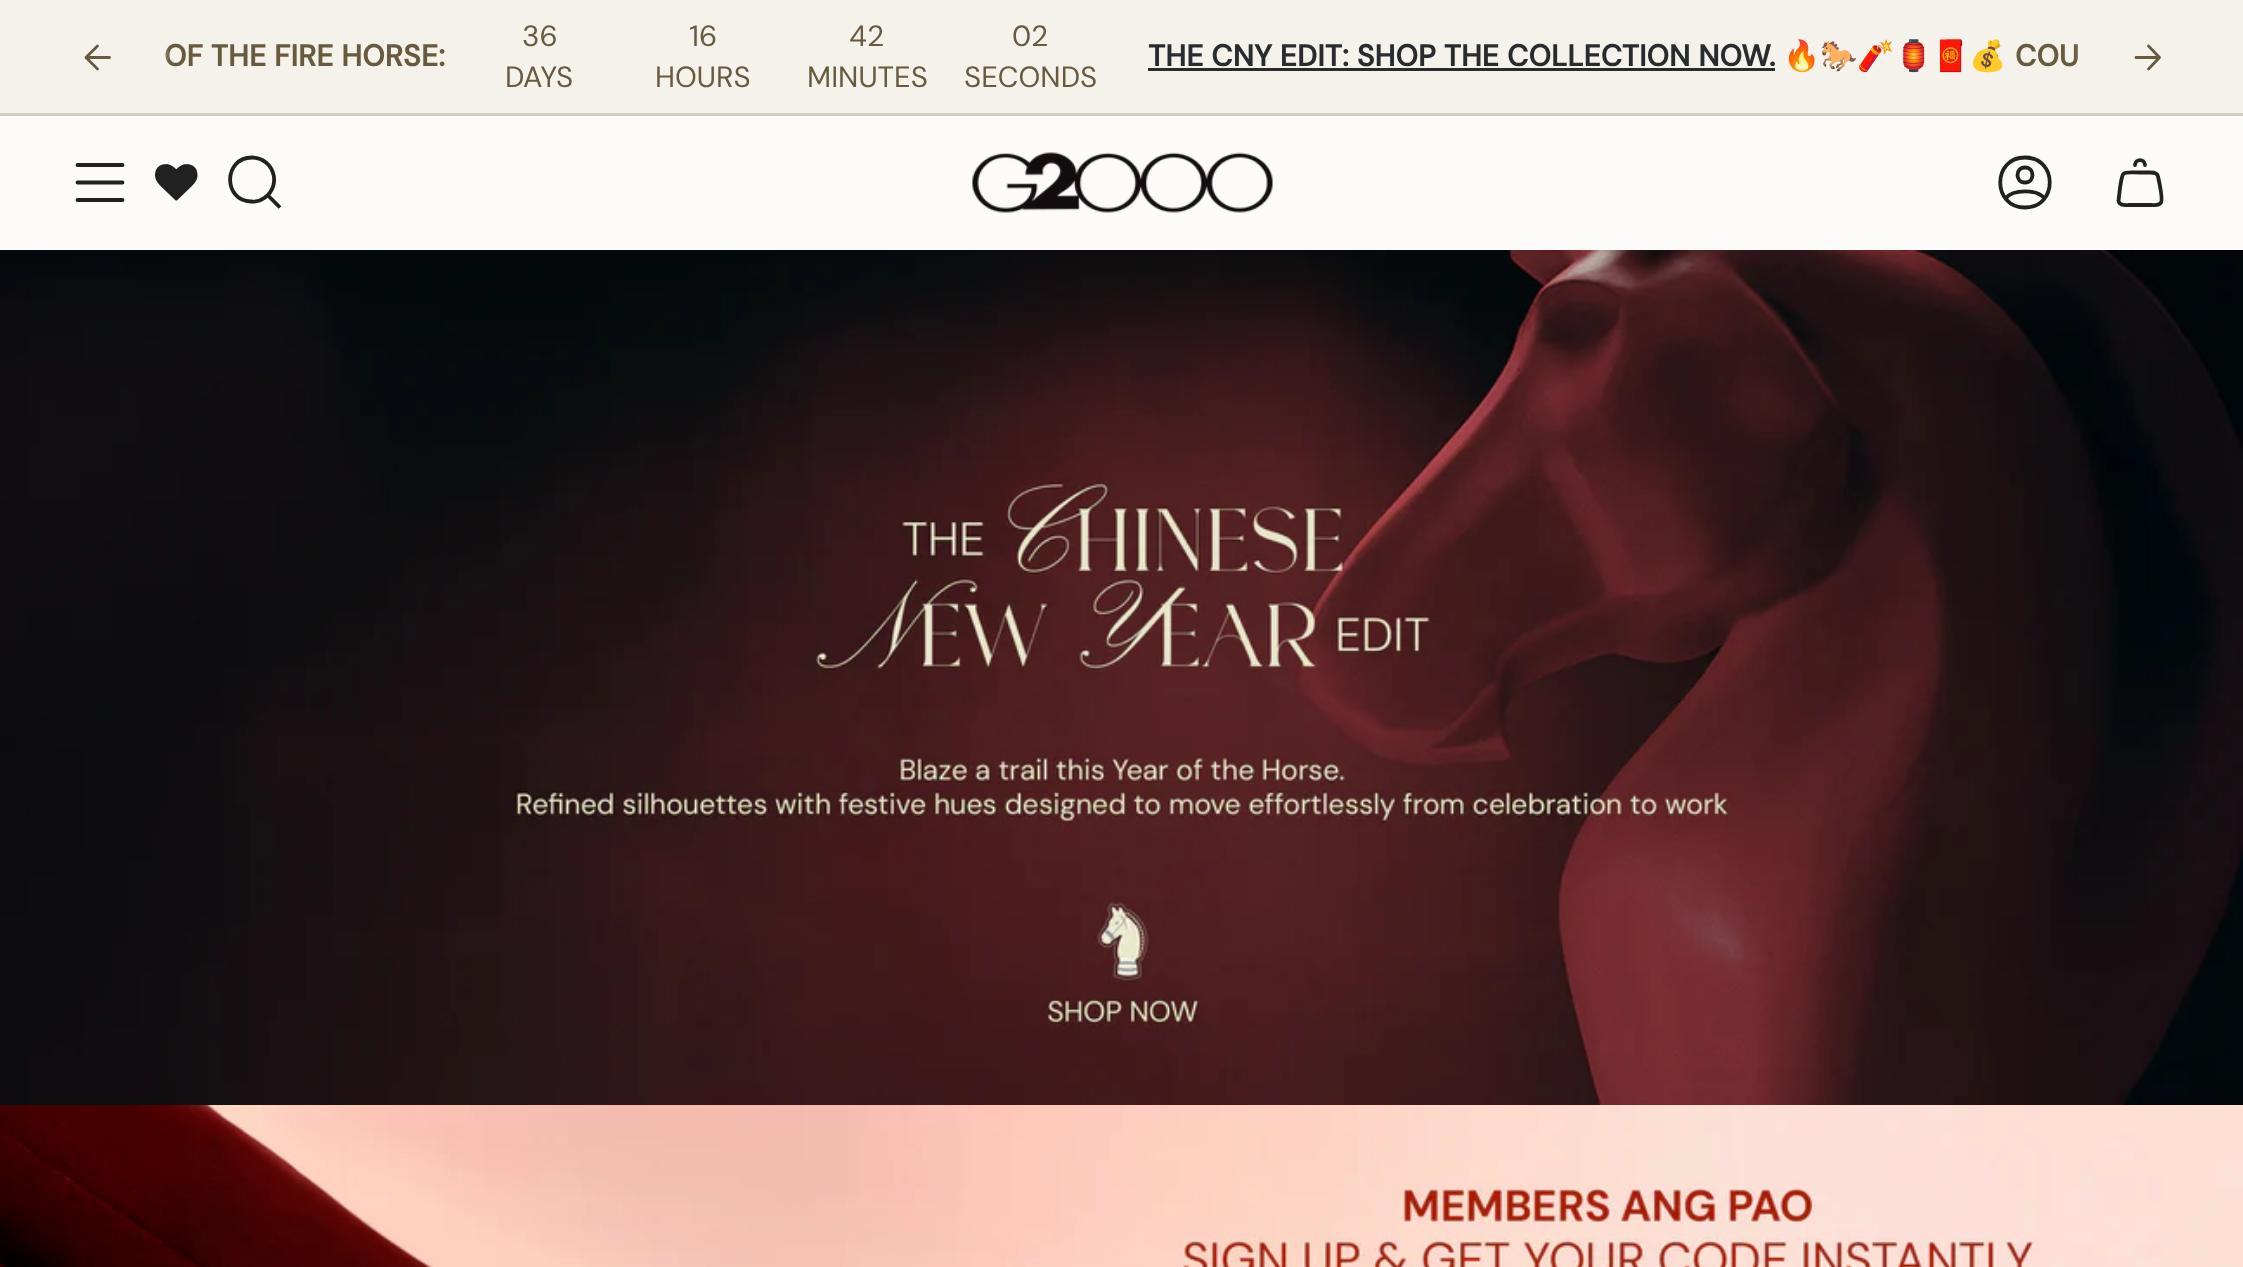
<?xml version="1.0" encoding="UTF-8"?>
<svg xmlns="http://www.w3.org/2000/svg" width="2243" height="1267">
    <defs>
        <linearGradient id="g1" gradientUnits="userSpaceOnUse" x1="75" y1="58" x2="170" y2="58"><stop offset="0.8" stop-color="#F5F2EC"/><stop offset="1" stop-color="#F5F2EC" stop-opacity="0"/></linearGradient>
        <linearGradient id="g2" gradientUnits="userSpaceOnUse" x1="2170" y1="58" x2="2075" y2="58"><stop offset="0.8" stop-color="#F5F2EC"/><stop offset="1" stop-color="#F5F2EC" stop-opacity="0"/></linearGradient>
    </defs>
    <rect width="100%" height="100%" fill="#FCFBF9"/>
    <rect x="0" y="0" width="2243" height="113" fill="#F5F2EC"/>
    <rect x="0" y="113" width="2243" height="3" fill="#D1CDC4"/>
    <path d="M 109.5 57.5 H 86 M 86 57.5 L 97.5 46 M 86 57.5 L 97.5 69" fill="none" stroke="#685A3F" stroke-width="2.8" stroke-linecap="round" stroke-linejoin="round"/>
    <text x="164" y="66" font-family="DM Sans" font-size="30" font-weight="700" fill="#685A3F">OF THE FIRE HORSE:</text>
    <text x="522" y="46" font-family="DM Sans" font-size="29.25" fill="#685A3F">36</text>
    <text x="505" y="87" font-family="DM Sans" font-size="29.25" fill="#685A3F">DAYS</text>
    <text x="689" y="46" font-family="DM Sans" font-size="29.25" fill="#685A3F">16</text>
    <text x="655" y="87" font-family="DM Sans" font-size="29.25" fill="#685A3F">HOURS</text>
    <text x="849" y="46" font-family="DM Sans" font-size="29.25" fill="#685A3F">42</text>
    <text x="807" y="87" font-family="DM Sans" font-size="29.25" fill="#685A3F">MINUTES</text>
    <text x="1012" y="46" font-family="DM Sans" font-size="29.25" fill="#685A3F">02</text>
    <text x="964" y="87" font-family="DM Sans" font-size="29.25" fill="#685A3F">SECONDS</text>
    <text x="1148" y="66" font-family="DM Sans" font-size="30" font-weight="700" fill="#282C2E">THE CNY EDIT: SHOP THE COLLECTION NOW.</text>
    <rect x="1148" y="68" width="627" height="3" fill="#282C2E"/>
    <text x="1783" y="66" font-family="Noto Color Emoji" font-size="30" font-weight="700" fill="#685A3F">🔥🐎🧨🏮🧧💰</text>
    <text x="2015" y="66" font-family="DM Sans" font-size="30" font-weight="700" fill="#685A3F">COU</text>
    <rect x="165" y="47" width="5" height="17" fill="url(#g1)"/>
    <rect x="2075" y="45" width="2" height="17" fill="url(#g2)"/>
    <path d="M 2136 57.5 H 2159.5 M 2159.5 57.5 L 2148.5 46 M 2159.5 57.5 L 2148.5 69" fill="none" stroke="#685A3F" stroke-width="2.8" stroke-linecap="round" stroke-linejoin="round"/>
    <path d="M 77.5 165 H 122.5 M 77.5 182.5 H 122.5 M 77.5 200 H 122.5" fill="none" stroke="#212121" stroke-width="3.8" stroke-linecap="round" stroke-linejoin="round"/>
    <image x="155" y="164" width="43" height="37" href="img_01.png"/>
    <path d="M 252 157.5 C 273 157.5 282.5 184.5 265 197.5 C 261 200.5 256 202 251 201.5 C 222.5 200.5 223.5 157.5 252 157.5 Z M 268 195.5 L 280 207.5" fill="none" stroke="#212121" stroke-width="3.8"/>
    <image x="972" y="152" width="301" height="61" href="img_02.png"/>
    <path d="M 2025 157.5 C 1992 157.5 1992 207.5 2025 207.5 C 2058 207.5 2058 157.5 2025 157.5 Z M 2005.5 198.5 C 2013 189 2037 189 2044.5 198.5 M 2025 182.5 C 2035 182.5 2035 167.5 2025 167.5 C 2015 167.5 2015 182.5 2025 182.5 Z" fill="none" stroke="#212121" stroke-width="3.8" stroke-linecap="round" stroke-linejoin="round"/>
    <path d="M 2158 176.5 C 2159 181 2163 199 2161 202.5 C 2159 206 2154.5 205 2151 205 H 2129 C 2125 205 2119.5 206 2118.5 201 L 2120 188 C 2123 169.5 2121 172.5 2140 172.5 H 2149 C 2152.5 172.5 2157.5 172 2158 176.5 Z M 2145 165 C 2145 158.5 2135 158.5 2135 165" fill="none" stroke="#212121" stroke-width="3.8" stroke-linecap="round" stroke-linejoin="round"/>
    <image x="0" y="250" width="2243" height="855" href="img_03.png"/>
    <image x="0" y="1105" width="2243" height="162" href="img_04.png"/>
</svg>
